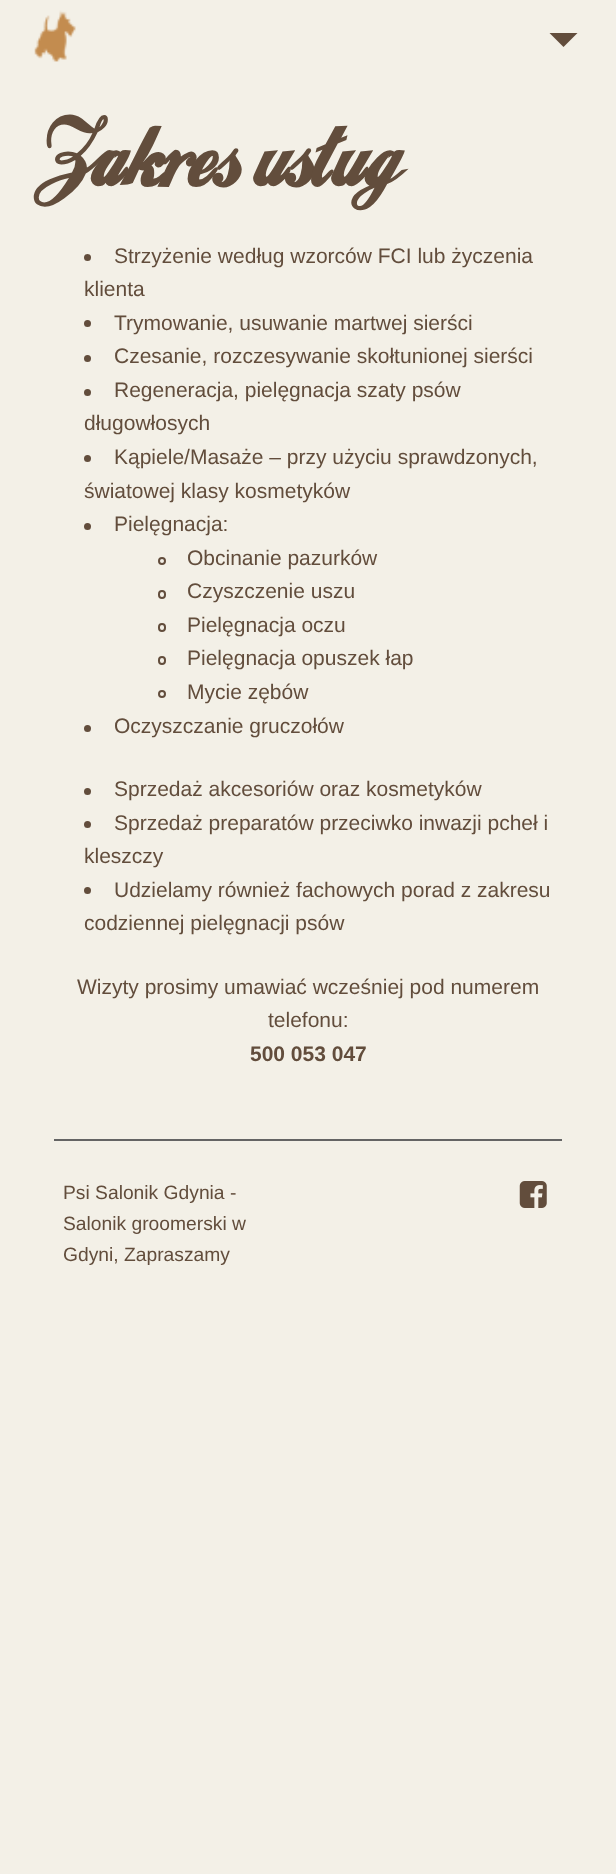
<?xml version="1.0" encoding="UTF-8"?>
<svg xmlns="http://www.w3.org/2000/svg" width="616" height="1874">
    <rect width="100%" height="100%" fill="#F3F0E7"/>
    <image x="34" y="10" width="42" height="52" href="img_01.png"/>
    <path d="M 549.5 33 H 577.5 L 563.5 47 Z" fill="#624D3C"/>
    <text x="46" y="187" font-family="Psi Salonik" font-size="87.5" font-weight="700" fill="#624D3C">Zakres usług</text>
    <circle cx="87.5" cy="257.5" r="3.5" fill="#624D3C"/>
    <text x="114" y="263" font-family="Liberation Sans" font-size="21" fill="#624D3C">Strzyżenie według wzorców FCI lub życzenia</text>
    <text x="84" y="296" font-family="Liberation Sans" font-size="21" fill="#624D3C">klienta</text>
    <circle cx="87.5" cy="323.5" r="3.5" fill="#624D3C"/>
    <text x="114" y="330" font-family="Liberation Sans" font-size="21" fill="#624D3C">Trymowanie, usuwanie martwej sierści</text>
    <circle cx="87.5" cy="358.5" r="3.5" fill="#624D3C"/>
    <text x="114" y="363" font-family="Liberation Sans" font-size="21" fill="#624D3C">Czesanie, rozczesywanie skołtunionej sierści</text>
    <circle cx="87.5" cy="392.5" r="3.5" fill="#624D3C"/>
    <text x="114" y="397" font-family="Liberation Sans" font-size="21" fill="#624D3C">Regeneracja, pielęgnacja szaty psów</text>
    <text x="84" y="430" font-family="Liberation Sans" font-size="21" fill="#624D3C">długowłosych</text>
    <circle cx="87.5" cy="458.5" r="3.5" fill="#624D3C"/>
    <text x="114" y="464" font-family="Liberation Sans" font-size="21" fill="#624D3C">Kąpiele/Masaże – przy użyciu sprawdzonych,</text>
    <text x="84" y="498" font-family="Liberation Sans" font-size="21" fill="#624D3C">światowej klasy kosmetyków</text>
    <circle cx="87.5" cy="526.5" r="3.5" fill="#624D3C"/>
    <text x="114" y="531" font-family="Liberation Sans" font-size="21" fill="#624D3C">Pielęgnacja:</text>
    <circle cx="162" cy="561" r="3" fill="none" stroke="#624D3C" stroke-width="2"/>
    <text x="187" y="565" font-family="Liberation Sans" font-size="21" fill="#624D3C">Obcinanie pazurków</text>
    <rect x="159" y="591" width="6" height="7" rx="3" fill="none" stroke="#624D3C" stroke-width="2"/>
    <text x="187" y="598" font-family="Liberation Sans" font-size="21" fill="#624D3C">Czyszczenie uszu</text>
    <rect x="159" y="624" width="6" height="7" rx="3" fill="none" stroke="#624D3C" stroke-width="2"/>
    <text x="187" y="632" font-family="Liberation Sans" font-size="21" fill="#624D3C">Pielęgnacja oczu</text>
    <rect x="159" y="657" width="6" height="7" rx="3" fill="none" stroke="#624D3C" stroke-width="2"/>
    <text x="187" y="665" font-family="Liberation Sans" font-size="21" fill="#624D3C">Pielęgnacja opuszek łap</text>
    <circle cx="162" cy="694" r="3" fill="none" stroke="#624D3C" stroke-width="2"/>
    <text x="187" y="699" font-family="Liberation Sans" font-size="21" fill="#624D3C">Mycie zębów</text>
    <circle cx="87.5" cy="728.5" r="3.5" fill="#624D3C"/>
    <text x="114" y="733" font-family="Liberation Sans" font-size="21" fill="#624D3C">Oczyszczanie gruczołów</text>
    <circle cx="87.5" cy="791.5" r="3.5" fill="#624D3C"/>
    <text x="114" y="796" font-family="Liberation Sans" font-size="21" fill="#624D3C">Sprzedaż akcesoriów oraz kosmetyków</text>
    <circle cx="87.5" cy="824.5" r="3.5" fill="#624D3C"/>
    <text x="114" y="830" font-family="Liberation Sans" font-size="21" fill="#624D3C">Sprzedaż preparatów przeciwko inwazji pcheł i</text>
    <text x="84" y="863" font-family="Liberation Sans" font-size="21" fill="#624D3C">kleszczy</text>
    <circle cx="87.5" cy="890.5" r="3.5" fill="#624D3C"/>
    <text x="114" y="897" font-family="Liberation Sans" font-size="21" fill="#624D3C">Udzielamy również fachowych porad z zakresu</text>
    <text x="84" y="930" font-family="Liberation Sans" font-size="21" fill="#624D3C">codziennej pielęgnacji psów</text>
    <text x="77" y="994" font-family="Liberation Sans" font-size="21" fill="#624D3C">Wizyty prosimy umawiać wcześniej pod numerem</text>
    <text x="268" y="1027" font-family="Liberation Sans" font-size="21" fill="#624D3C">telefonu:</text>
    <text x="250" y="1061" font-family="Liberation Sans" font-size="21" font-weight="700" fill="#624D3C">500 053 047</text>
    <rect x="54" y="1139" width="508" height="2" fill="#646464"/>
    <text font-family="Liberation Sans" font-size="19.25" fill="#624D3C">
        <tspan x="63" y="1199">Psi Salonik Gdynia -</tspan>
        <tspan x="63" y="1230">Salonik groomerski w</tspan>
        <tspan x="63" y="1261">Gdyni, Zapraszamy</tspan>
    </text>
    <image x="519" y="1181" width="28" height="27" href="img_02.png"/>
</svg>
